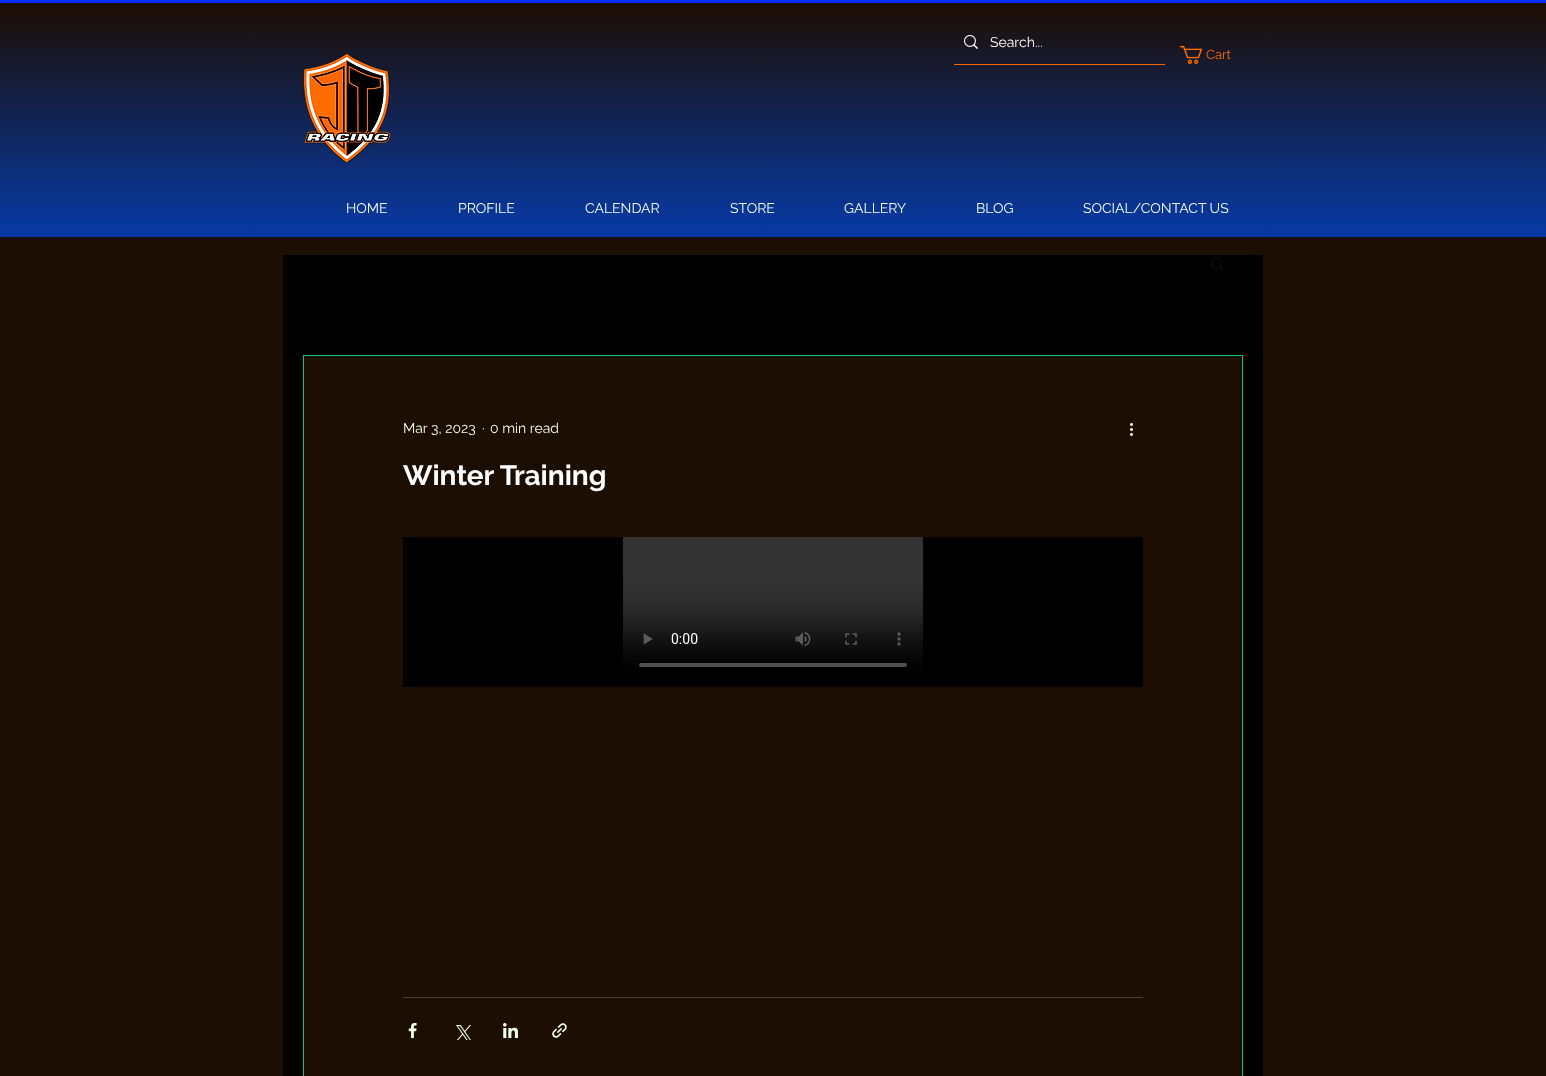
<?xml version="1.0" encoding="UTF-8"?>
<svg xmlns="http://www.w3.org/2000/svg" width="1546" height="1076">
    <defs>
        <linearGradient id="g1" gradientUnits="userSpaceOnUse" x1="773" y1="237" x2="773" y2="3"><stop offset="0" stop-color="#073AA6"/><stop offset="1" stop-color="#1D0E03"/></linearGradient>
    </defs>
    <rect width="100%" height="100%" fill="#002DFF"/>
    <rect x="0" y="3" width="1546" height="234" fill="url(#g1)"/>
    <rect x="954" y="64" width="211" height="1" fill="#F26702"/>
    <image x="964" y="35" width="14" height="14" href="img_01.png"/>
    <text x="990" y="47" font-family="Raleway" font-size="14" fill="#FFFFFF">Search...</text>
    <image x="303" y="54" width="88" height="108" href="img_02.png"/>
    <image x="1180" y="46" width="23" height="18" href="img_03.png"/>
    <text x="1206" y="59" font-family="Raleway" font-size="13" fill="#FF6D00">Cart</text>
    <text x="346" y="213" font-family="Raleway" font-size="14" fill="#F5FFEF">HOME</text>
    <text x="458" y="213" font-family="Raleway" font-size="14" fill="#F5FFEF">PROFILE</text>
    <text x="585" y="213" font-family="Raleway" font-size="14" fill="#F5FFEF">CALENDAR</text>
    <text x="730" y="213" font-family="Raleway" font-size="14" fill="#F5FFEF">STORE</text>
    <text x="844" y="213" font-family="Raleway" font-size="14" fill="#F5FFEF">GALLERY</text>
    <text x="976" y="213" font-family="Raleway" font-size="14" fill="#F5FFEF">BLOG</text>
    <text x="1083" y="213" font-family="Raleway" font-size="14" fill="#F5FFEF">SOCIAL/CONTACT US</text>
    <rect x="0" y="237" width="1546" height="839" fill="#1D0E03"/>
    <rect x="283" y="255" width="980" height="821" fill="#000000"/>
    <image x="1211" y="258" width="13" height="13" href="img_04.png"/>
    <rect x="303.5" y="355.5" width="939" height="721" fill="#1D0E03" stroke="#02CA81"/>
    <text x="403" y="433" font-family="Raleway" font-size="14" fill="#F5FFEF">Mar 3, 2023</text>
    <text x="482" y="433" font-family="Raleway" font-size="14" fill="#F5FFEF">·</text>
    <text x="490" y="433" font-family="Raleway" font-size="14" fill="#F5FFEF">0 min read</text>
    <image x="1130" y="423" width="3" height="13" href="img_05.png"/>
    <text x="403" y="485" font-family="Raleway" font-size="28" font-weight="700" fill="#FFFFFF">Winter Training</text>
    <image x="403" y="537" width="740" height="150" href="img_06.png"/>
    <rect x="403" y="997" width="740" height="1" fill="#483E32"/>
    <image x="408" y="1023" width="9" height="15" href="img_07.png"/>
    <image x="456" y="1025" width="15" height="15" href="img_08.png"/>
    <image x="503" y="1023" width="15" height="15" href="img_09.png"/>
    <image x="552" y="1023" width="15" height="15" href="img_10.png"/>
</svg>
